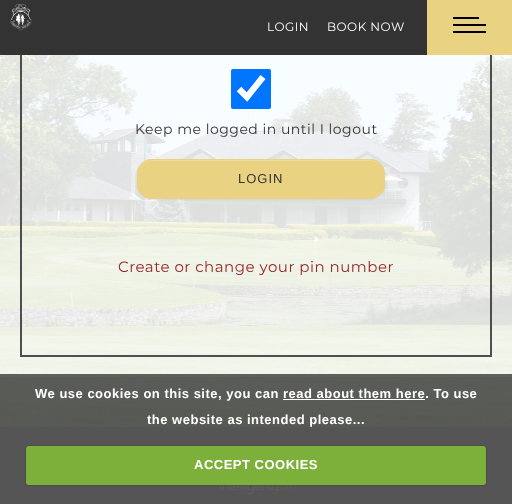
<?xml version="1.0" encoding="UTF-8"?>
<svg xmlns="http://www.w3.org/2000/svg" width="512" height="504">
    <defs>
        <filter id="blur1" x="-50%" y="-200%" width="200%" height="500%"><feGaussianBlur stdDeviation="1"/></filter>
    </defs>
    <rect width="100%" height="100%" fill="#FFFFFF"/>
    <image x="0" y="55" width="512" height="372" href="img_01.png"/>
    <rect x="0" y="55" width="512" height="322" fill="#FFFFFF" fill-opacity="0.86"/>
    <rect x="21" y="-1" width="470" height="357" fill="none" stroke="#323232" stroke-opacity="0.85" stroke-width="2"/>
    <rect x="0" y="0" width="427" height="55" fill="#333333"/>
    <image x="10" y="3" width="22" height="28" href="img_02.png"/>
    <rect x="427" y="0" width="85" height="55" fill="#E9D282"/>
    <rect x="453" y="17" width="26" height="2" fill="#000000"/>
    <rect x="453" y="24" width="33" height="2" fill="#000000"/>
    <rect x="453" y="31" width="33" height="2" fill="#000000"/>
    <text x="267" y="31" font-family="Montserrat" font-size="12" letter-spacing="0.5" fill="#FFFFFF">LOGIN</text>
    <text x="327" y="31" font-family="Montserrat" font-size="12" letter-spacing="0.5" fill="#FFFFFF">BOOK NOW</text>
    <rect x="231" y="69" width="40" height="40" rx="2" fill="#0075FF"/>
    <path d="M 239 89 L 247 97 L 263 77" fill="none" stroke="#FFFFFF" stroke-width="6.4"/>
    <text x="135" y="134" font-family="Montserrat" font-size="14" letter-spacing="0.5" fill="#333333">Keep me logged in until I logout</text>
    <rect x="137" y="160" width="248" height="40" rx="15" fill="#000000" fill-opacity="0.05" filter="url(#blur1)"/>
    <rect x="137" y="159" width="248" height="40" rx="15" fill="#E9D282"/>
    <path d="M 152 161 H 370 C 378 161 384 167 384 175 V 174 C 384 166 378 160 370 160 H 152 C 144 160 138 166 138 174 V 175 C 138 167 144 161 152 161 Z" fill="#EDDB9B"/>
    <rect x="137.5" y="159.5" width="247" height="39" rx="14.5" fill="none" stroke="#E9D282"/>
    <text x="238" y="183" font-family="Liberation Sans" font-size="13" letter-spacing="1" fill="#333333">LOGIN</text>
    <text x="118" y="272" font-family="Montserrat" font-size="15" letter-spacing="0.5" fill="#942929">Create or change your pin number</text>
    <rect x="0" y="427" width="512" height="77" fill="#414141"/>
    <image x="220" y="485" width="72" height="10" href="img_03.png"/>
    <rect x="0" y="374" width="512" height="130" fill="#565656" fill-opacity="0.95"/>
    <text x="35" y="398" font-family="Liberation Sans" font-size="13" font-weight="700" letter-spacing="0.5" fill="#FFFFFF">We use cookies on this site, you can read about them here. To use</text>
    <rect x="283" y="399" width="142" height="1" fill="#FFFFFF"/>
    <text x="147" y="424" font-family="Liberation Sans" font-size="13" font-weight="700" letter-spacing="0.5" fill="#FFFFFF">the website as intended please...</text>
    <rect x="26" y="446" width="460" height="39" rx="3" fill="#000000" fill-opacity="0.25" filter="url(#blur1)"/>
    <rect x="26" y="446" width="460" height="39" rx="3" fill="#7DAF3B"/>
    <text x="194" y="469" font-family="Liberation Sans" font-size="13" font-weight="700" letter-spacing="0.5" fill="#FFFFFF">ACCEPT COOKIES</text>
</svg>
